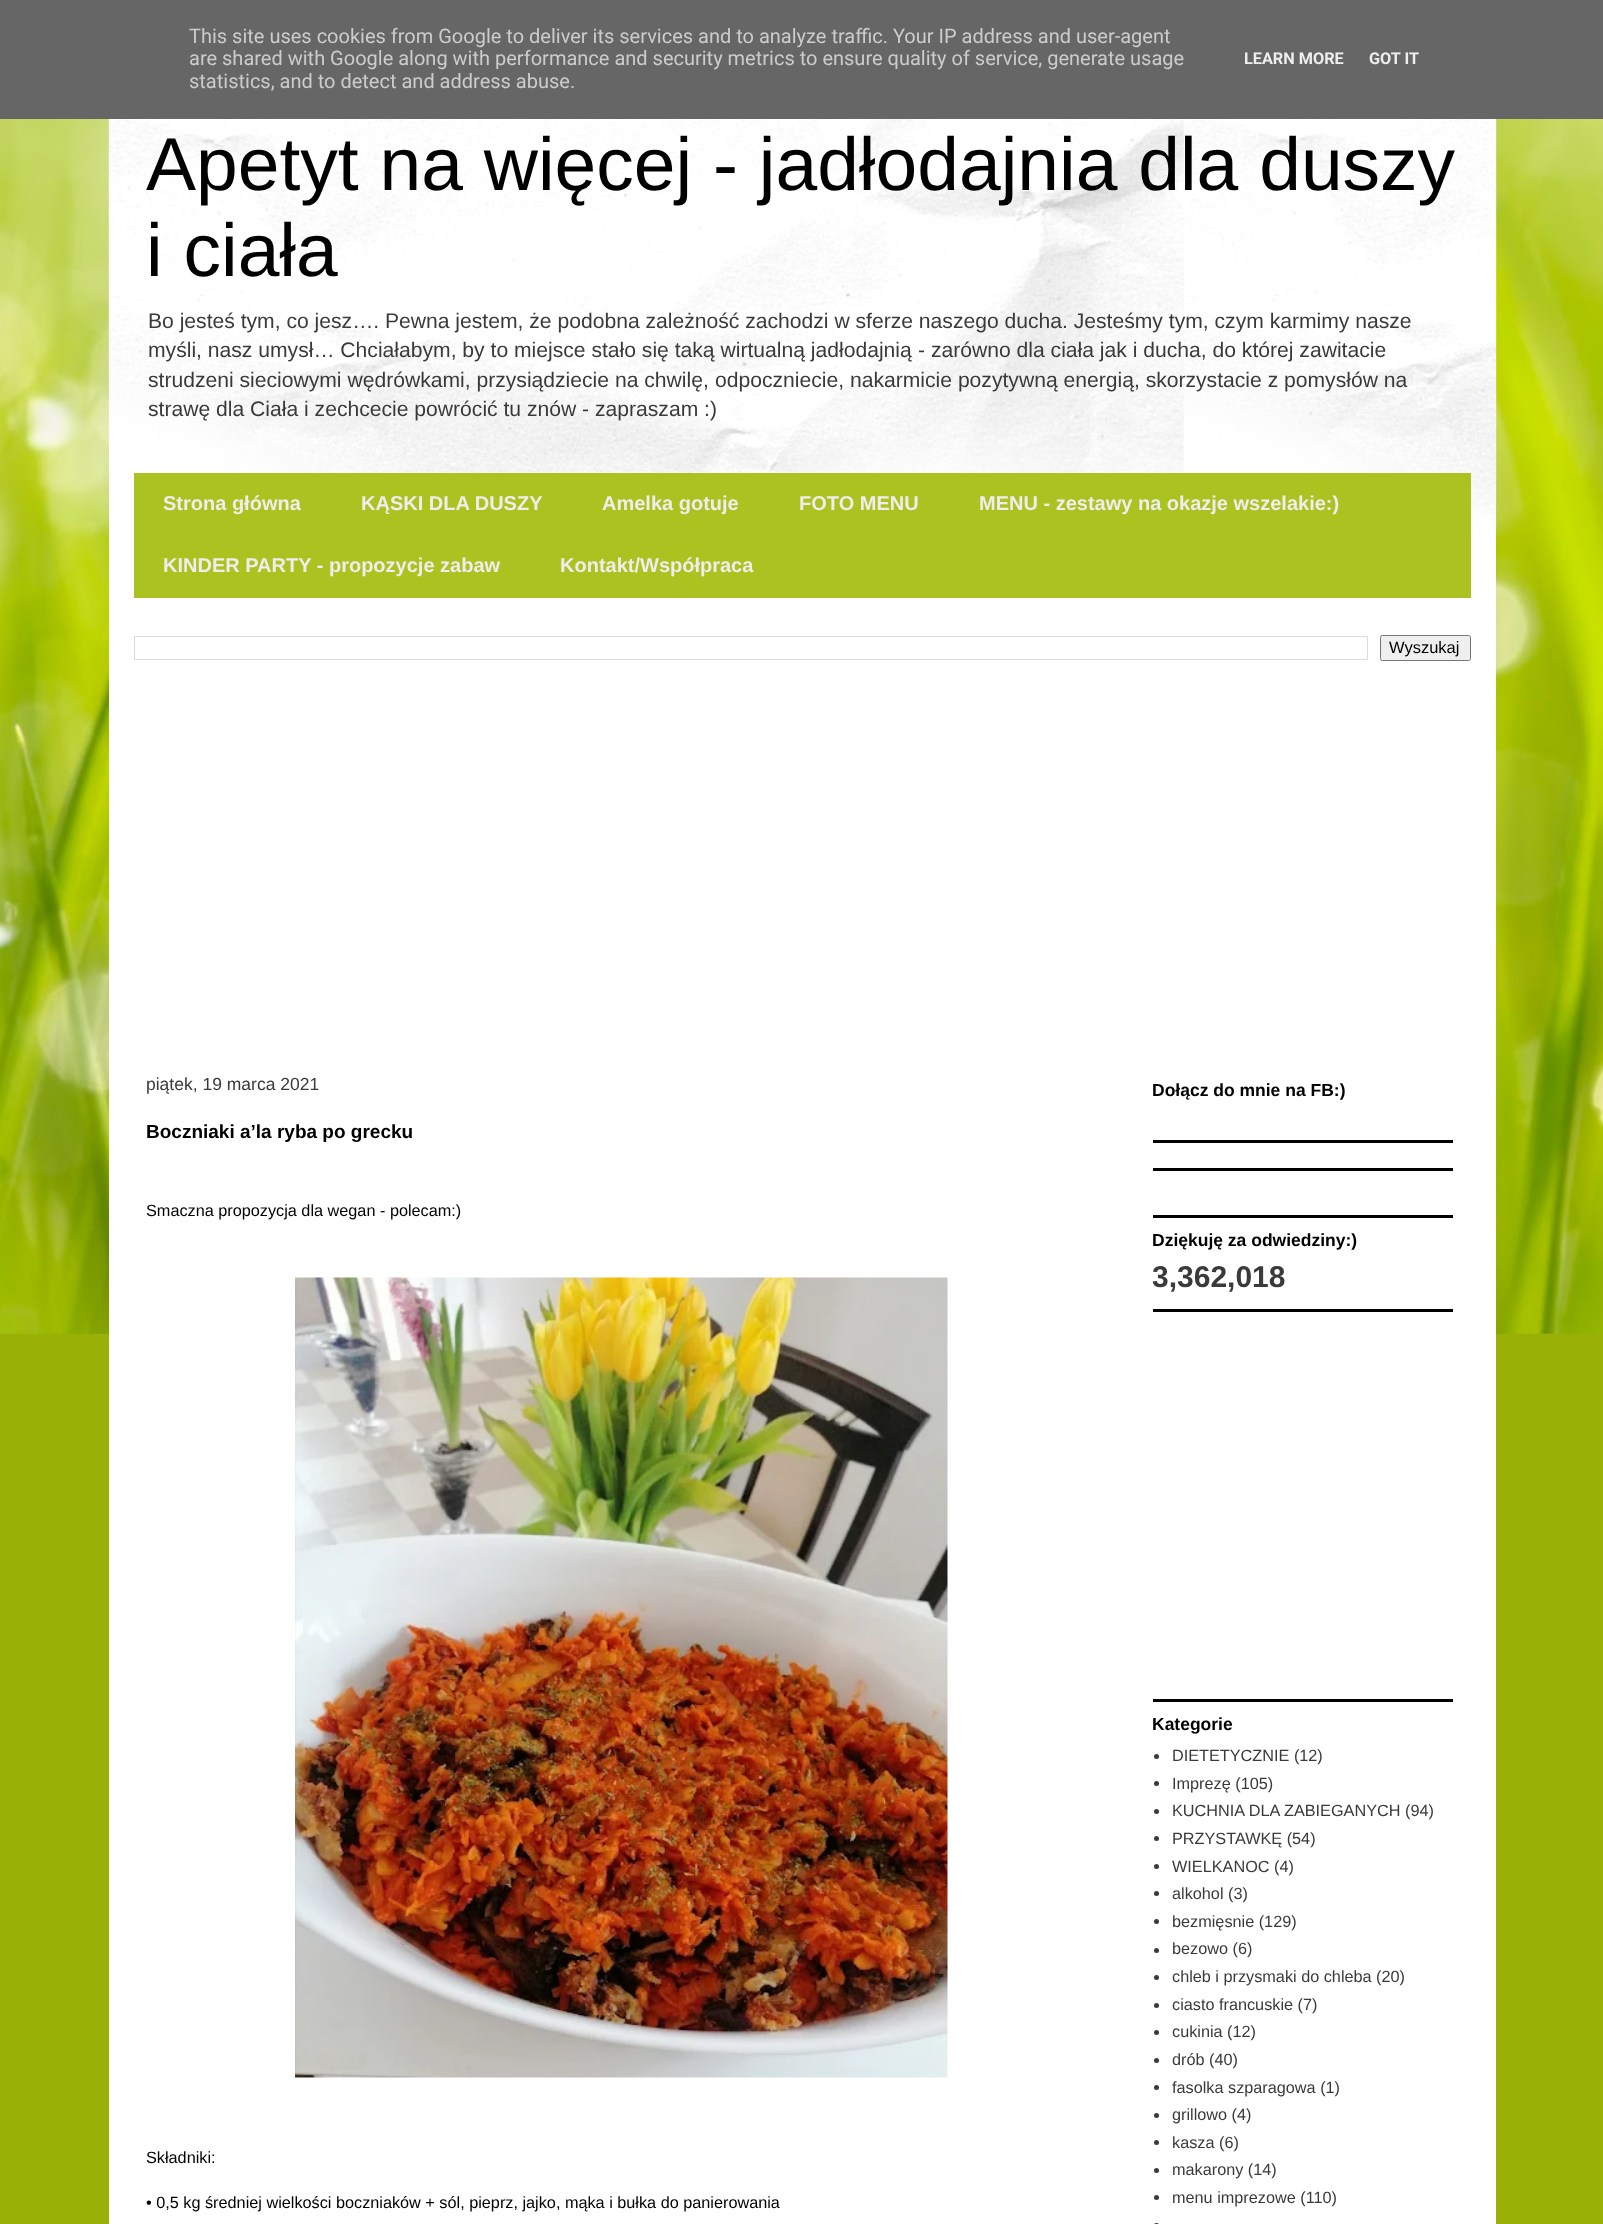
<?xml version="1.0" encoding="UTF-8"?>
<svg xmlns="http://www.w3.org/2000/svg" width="1603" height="2224">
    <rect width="100%" height="100%" fill="#99B006"/>
    <image x="0" y="119" width="1603" height="1215" href="img_01.png"/>
    <rect x="0" y="0" width="1603" height="119" fill="#666666"/>
    <text font-family="Roboto" font-size="20" fill="#CCCCCC">
        <tspan x="189" y="43">This site uses cookies from Google to deliver its services and to analyze traffic. Your IP address and user-agent</tspan>
        <tspan x="189" y="65">are shared with Google along with performance and security metrics to ensure quality of service, generate usage</tspan>
        <tspan x="189" y="88">statistics, and to detect and address abuse.</tspan>
    </text>
    <text x="1244" y="64" font-family="Roboto" font-size="16.25" font-weight="700" fill="#EEEEEE">LEARN MORE</text>
    <text x="1369" y="64" font-family="Roboto" font-size="16.25" font-weight="700" fill="#EEEEEE">GOT IT</text>
    <rect x="109" y="119" width="1387" height="2105" fill="#FFFFFF"/>
    <image x="108" y="119" width="1389" height="433" href="img_02.png"/>
    <text font-family="Liberation Sans" font-size="75" fill="#000000">
        <tspan x="146" y="190">Apetyt na więcej - jadłodajnia dla duszy</tspan>
        <tspan x="146" y="276">i ciała</tspan>
    </text>
    <text font-family="Liberation Sans" font-size="21.12" fill="#3A3A3A">
        <tspan x="148" y="328">Bo jesteś tym, co jesz…. Pewna jestem, że podobna zależność zachodzi w sferze naszego ducha. Jesteśmy tym, czym karmimy nasze</tspan>
        <tspan x="148" y="357">myśli, nasz umysł… Chciałabym, by to miejsce stało się taką wirtualną jadłodajnią</tspan>
    </text>
    <text x="918" y="357" font-family="Liberation Sans" font-size="21.12" fill="#3A3A3A">- zarówno dla ciała jak i ducha, do której zawitacie</text>
    <text x="148" y="387" font-family="Liberation Sans" font-size="21.12" fill="#3A3A3A">strudzeni sieciowymi wędrówkami, przysiądziecie na chwilę,</text>
    <text x="715" y="387" font-family="Liberation Sans" font-size="21.12" fill="#3A3A3A">odpoczniecie, nakarmicie pozytywną energią, skorzystacie z pomysłów na</text>
    <text x="148" y="416" font-family="Liberation Sans" font-size="21.12" fill="#3A3A3A">strawę dla Ciała i zechcecie powrócić tu znów - zapraszam :)</text>
    <rect x="134" y="473" width="1337" height="125" fill="#AAC320"/>
    <text x="163" y="510" font-family="Liberation Sans" font-size="20" font-weight="700" fill="#EEEEEE">Strona główna</text>
    <text x="361" y="510" font-family="Liberation Sans" font-size="20" font-weight="700" fill="#EEEEEE">KĄSKI DLA DUSZY</text>
    <text x="602" y="510" font-family="Liberation Sans" font-size="20" font-weight="700" fill="#EEEEEE">Amelka gotuje</text>
    <text x="799" y="510" font-family="Liberation Sans" font-size="20" font-weight="700" fill="#EEEEEE">FOTO MENU</text>
    <text x="979" y="510" font-family="Liberation Sans" font-size="20" font-weight="700" fill="#EEEEEE">MENU - zestawy na okazje wszelakie:)</text>
    <text x="163" y="572" font-family="Liberation Sans" font-size="20" font-weight="700" fill="#EEEEEE">KINDER PARTY - propozycje zabaw</text>
    <text x="560" y="572" font-family="Liberation Sans" font-size="20" font-weight="700" fill="#EEEEEE">Kontakt/Współpraca</text>
    <rect x="134.5" y="636.5" width="1233" height="23" fill="none" stroke="#DDDDDD"/>
    <rect x="1380.5" y="635.5" width="90" height="25" rx="2" fill="#EFEFEF" stroke="#767676"/>
    <text x="1389" y="653" font-family="Liberation Sans" font-size="16.5" fill="#000000">Wyszukaj</text>
    <text x="146" y="1090" font-family="Liberation Sans" font-size="17.5" fill="#3A3A3A">piątek, 19 marca 2021</text>
    <text x="146" y="1138" font-family="Liberation Sans" font-size="19" font-weight="700" fill="#000000">Boczniaki a’la ryba po grecku</text>
    <text x="146" y="1216" font-family="Liberation Sans" font-size="16.25" fill="#000000">Smaczna propozycja dla wegan - polecam:)</text>
    <image x="295" y="1277" width="653" height="801" href="img_03.png"/>
    <text x="146" y="2163" font-family="Liberation Sans" font-size="16.25" fill="#000000">Składniki:</text>
    <text x="146" y="2208" font-family="Liberation Sans" font-size="16.25" fill="#000000">• 0,5 kg średniej wielkości boczniaków + sól, pieprz, jajko, mąka i bułka do panierowania</text>
    <rect x="1153" y="1140" width="300" height="3" fill="#000000"/>
    <text x="1152" y="1096" font-family="Liberation Sans" font-size="17.5" font-weight="700" fill="#000000">Dołącz do mnie na FB:)</text>
    <rect x="1153" y="1168" width="300" height="3" fill="#000000"/>
    <rect x="1153" y="1215" width="300" height="3" fill="#000000"/>
    <rect x="1153" y="1309" width="300" height="3" fill="#000000"/>
    <text x="1152" y="1246" font-family="Liberation Sans" font-size="17.5" font-weight="700" fill="#000000">Dziękuję za odwiedziny:)</text>
    <text x="1152" y="1287" font-family="Liberation Sans" font-size="30" font-weight="700" fill="#3A3A3A">3,362,018</text>
    <rect x="1153" y="1699" width="300" height="3" fill="#000000"/>
    <text x="1152" y="1730" font-family="Liberation Sans" font-size="17.5" font-weight="700" fill="#000000">Kategorie</text>
    <circle cx="1156.5" cy="1756.5" r="2.5" fill="#3A3A3A"/>
    <text x="1172" y="1761" font-family="Liberation Sans" font-size="16.25" fill="#3A3A3A">DIETETYCZNIE (12)</text>
    <circle cx="1156.5" cy="1783.5" r="2.5" fill="#3A3A3A"/>
    <text x="1172" y="1789" font-family="Liberation Sans" font-size="16.25" fill="#3A3A3A">Imprezę (105)</text>
    <circle cx="1156.5" cy="1811.5" r="2.5" fill="#3A3A3A"/>
    <text x="1172" y="1816" font-family="Liberation Sans" font-size="16.25" fill="#3A3A3A">KUCHNIA DLA ZABIEGANYCH (94)</text>
    <circle cx="1156.5" cy="1838.5" r="2.5" fill="#3A3A3A"/>
    <text x="1172" y="1844" font-family="Liberation Sans" font-size="16.25" fill="#3A3A3A">PRZYSTAWKĘ (54)</text>
    <circle cx="1156.5" cy="1866.5" r="2.5" fill="#3A3A3A"/>
    <text x="1172" y="1872" font-family="Liberation Sans" font-size="16.25" fill="#3A3A3A">WIELKANOC (4)</text>
    <circle cx="1156.5" cy="1893.5" r="2.5" fill="#3A3A3A"/>
    <text x="1172" y="1899" font-family="Liberation Sans" font-size="16.25" fill="#3A3A3A">alkohol (3)</text>
    <circle cx="1156.5" cy="1921.5" r="2.5" fill="#3A3A3A"/>
    <text x="1172" y="1927" font-family="Liberation Sans" font-size="16.25" fill="#3A3A3A">bezmięsnie (129)</text>
    <circle cx="1156.5" cy="1950.5" r="2.5" fill="#3A3A3A"/>
    <text x="1172" y="1954" font-family="Liberation Sans" font-size="16.25" fill="#3A3A3A">bezowo (6)</text>
    <circle cx="1156.5" cy="1977.5" r="2.5" fill="#3A3A3A"/>
    <text x="1172" y="1982" font-family="Liberation Sans" font-size="16.25" fill="#3A3A3A">chleb i przysmaki do chleba (20)</text>
    <circle cx="1156.5" cy="2005.5" r="2.5" fill="#3A3A3A"/>
    <text x="1172" y="2010" font-family="Liberation Sans" font-size="16.25" fill="#3A3A3A">ciasto francuskie (7)</text>
    <circle cx="1156.5" cy="2032.5" r="2.5" fill="#3A3A3A"/>
    <text x="1172" y="2037" font-family="Liberation Sans" font-size="16.25" fill="#3A3A3A">cukinia (12)</text>
    <circle cx="1156.5" cy="2060.5" r="2.5" fill="#3A3A3A"/>
    <text x="1172" y="2065" font-family="Liberation Sans" font-size="16.25" fill="#3A3A3A">drób (40)</text>
    <circle cx="1156.5" cy="2087.5" r="2.5" fill="#3A3A3A"/>
    <text x="1172" y="2093" font-family="Liberation Sans" font-size="16.25" fill="#3A3A3A">fasolka szparagowa (1)</text>
    <circle cx="1156.5" cy="2115.5" r="2.5" fill="#3A3A3A"/>
    <text x="1172" y="2120" font-family="Liberation Sans" font-size="16.25" fill="#3A3A3A">grillowo (4)</text>
    <circle cx="1156.5" cy="2142.5" r="2.5" fill="#3A3A3A"/>
    <text x="1172" y="2148" font-family="Liberation Sans" font-size="16.25" fill="#3A3A3A">kasza (6)</text>
    <circle cx="1156.5" cy="2170.5" r="2.5" fill="#3A3A3A"/>
    <text x="1172" y="2175" font-family="Liberation Sans" font-size="16.25" fill="#3A3A3A">makarony (14)</text>
    <circle cx="1156.5" cy="2197.5" r="2.5" fill="#3A3A3A"/>
    <text x="1172" y="2203" font-family="Liberation Sans" font-size="16.25" fill="#3A3A3A">menu imprezowe (110)</text>
    <rect x="1154" y="2223" width="5" height="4" rx="2.5" fill="#3A3A3A"/>
</svg>
